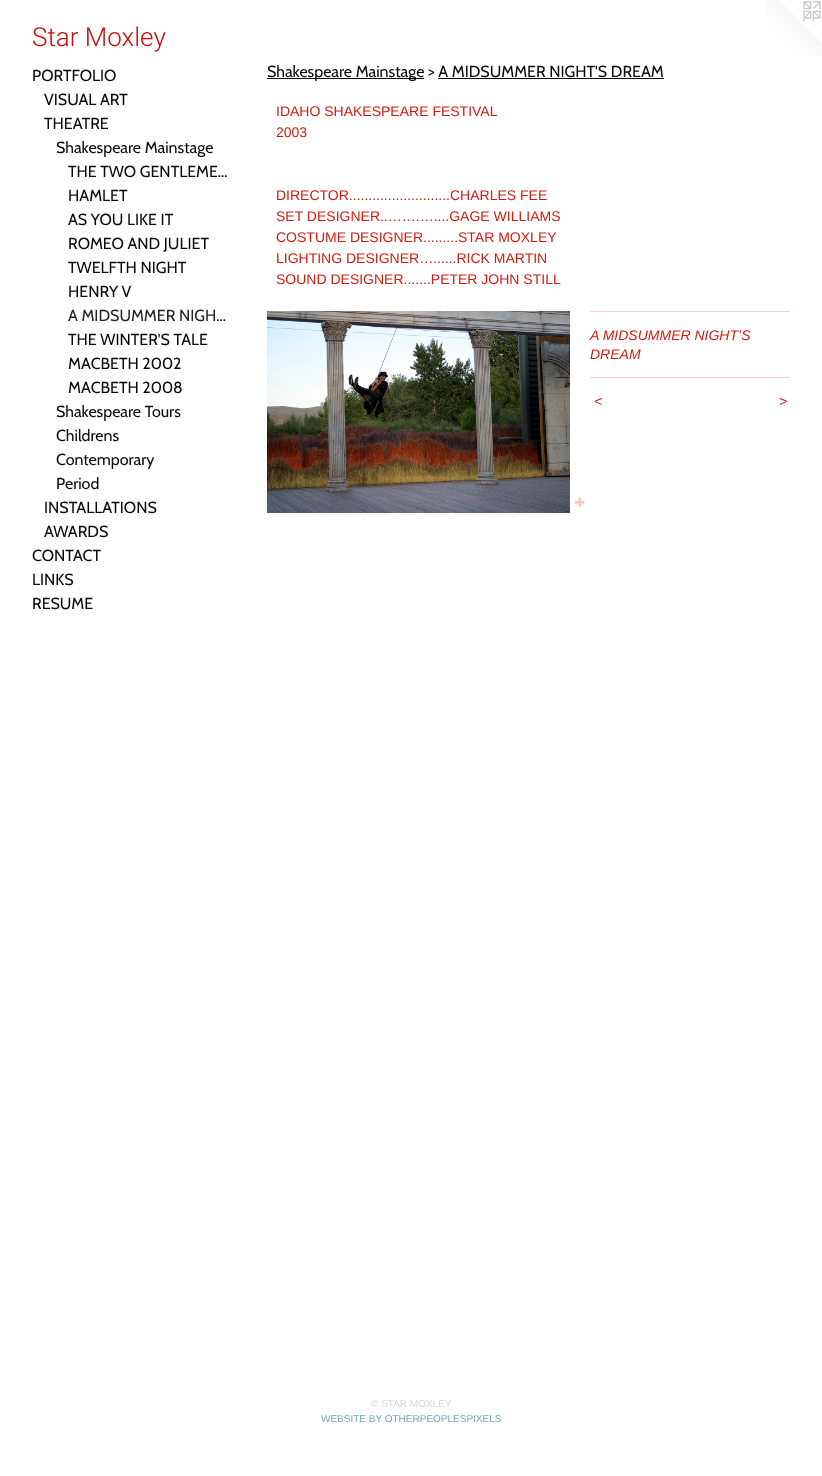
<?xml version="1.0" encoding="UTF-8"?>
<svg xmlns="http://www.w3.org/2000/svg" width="822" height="1476">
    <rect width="100%" height="100%" fill="#FFFFFF"/>
    <text x="32" y="46" font-family="Roboto" font-size="26" font-weight="300" fill="#CB0B0B">Star Moxley</text>
    <image x="766" y="0" width="56" height="56" href="img_01.png"/>
    <text x="32" y="81" font-family="Cabin" font-size="16" fill="#0B0A0A">PORTFOLIO</text>
    <text font-family="Cabin" font-size="16" fill="#0B0A0A">
        <tspan x="44" y="105">VISUAL ART</tspan>
        <tspan x="44" y="129">THEATRE</tspan>
    </text>
    <text x="56" y="153" font-family="Cabin" font-size="16" fill="#0B0A0A">Shakespeare Mainstage</text>
    <text font-family="Cabin" font-size="16" fill="#0B0A0A">
        <tspan x="68" y="177">THE TWO GENTLEME…</tspan>
        <tspan x="68" y="201">HAMLET</tspan>
        <tspan x="68" y="225">AS YOU LIKE IT</tspan>
        <tspan x="68" y="249">ROMEO AND JULIET</tspan>
        <tspan x="68" y="273">TWELFTH NIGHT</tspan>
        <tspan x="68" y="297">HENRY V</tspan>
    </text>
    <text x="68" y="321" font-family="Cabin" font-size="16" fill="#262222">A MIDSUMMER NIGH…</text>
    <text font-family="Cabin" font-size="16" fill="#0B0A0A">
        <tspan x="68" y="345">THE WINTER'S TALE</tspan>
        <tspan x="68" y="369">MACBETH 2002</tspan>
        <tspan x="68" y="393">MACBETH 2008</tspan>
    </text>
    <text font-family="Cabin" font-size="16" fill="#0B0A0A">
        <tspan x="56" y="417">Shakespeare Tours</tspan>
        <tspan x="56" y="441">Childrens</tspan>
        <tspan x="56" y="465">Contemporary</tspan>
        <tspan x="56" y="489">Period</tspan>
    </text>
    <text font-family="Cabin" font-size="16" fill="#0B0A0A">
        <tspan x="44" y="513">INSTALLATIONS</tspan>
        <tspan x="44" y="537">AWARDS</tspan>
    </text>
    <text font-family="Cabin" font-size="16" fill="#0B0A0A">
        <tspan x="32" y="561">CONTACT</tspan>
        <tspan x="32" y="585">LINKS</tspan>
        <tspan x="32" y="609">RESUME</tspan>
    </text>
    <rect x="267" y="78" width="157" height="1" fill="#0B0A0A"/>
    <text x="267" y="77" font-family="Cabin" font-size="16" fill="#0B0A0A">Shakespeare Mainstage &gt; A MIDSUMMER NIGHT'S DREAM</text>
    <rect x="438" y="78" width="226" height="1" fill="#0B0A0A"/>
    <text font-family="Liberation Sans" font-size="14" fill="#D3190D">
        <tspan x="276" y="116">IDAHO SHAKESPEARE FESTIVAL</tspan>
        <tspan x="276" y="137">2003</tspan>
    </text>
    <text font-family="Liberation Sans" font-size="14" fill="#D3190D">
        <tspan x="276" y="200">DIRECTOR..........................CHARLES FEE</tspan>
        <tspan x="276" y="221">SET DESIGNER..…….…....GAGE WILLIAMS</tspan>
        <tspan x="276" y="242">COSTUME DESIGNER.........STAR MOXLEY</tspan>
        <tspan x="276" y="263">LIGHTING DESIGNER…......RICK MARTIN</tspan>
        <tspan x="276" y="284">SOUND DESIGNER.......PETER JOHN STILL</tspan>
    </text>
    <image x="267" y="311" width="303" height="202" href="img_02.png"/>
    <image x="575" y="497" width="10" height="10" href="img_03.png"/>
    <rect x="590" y="311" width="200" height="1" fill="#F6D1CF"/>
    <text font-family="Liberation Sans" font-size="14" font-style="italic" fill="#D3190D">
        <tspan x="590" y="340">A MIDSUMMER NIGHT’S</tspan>
        <tspan x="590" y="359">DREAM</tspan>
    </text>
    <rect x="590" y="377" width="200" height="1" fill="#F6D1CF"/>
    <text x="594" y="406" font-family="Liberation Sans" font-size="14" font-style="italic" letter-spacing="1" fill="#D3190D">&lt;</text>
    <text x="779" y="406" font-family="Liberation Sans" font-size="14" font-style="italic" letter-spacing="1" fill="#D3190D">&gt;</text>
    <text x="371" y="1407" font-family="Liberation Sans" font-size="10" fill="#D6D6D6">© STAR MOXLEY</text>
    <text x="321" y="1422" font-family="Liberation Sans" font-size="10" fill="#70A8C0">WEBSITE BY OTHERPEOPLESPIXELS</text>
</svg>
